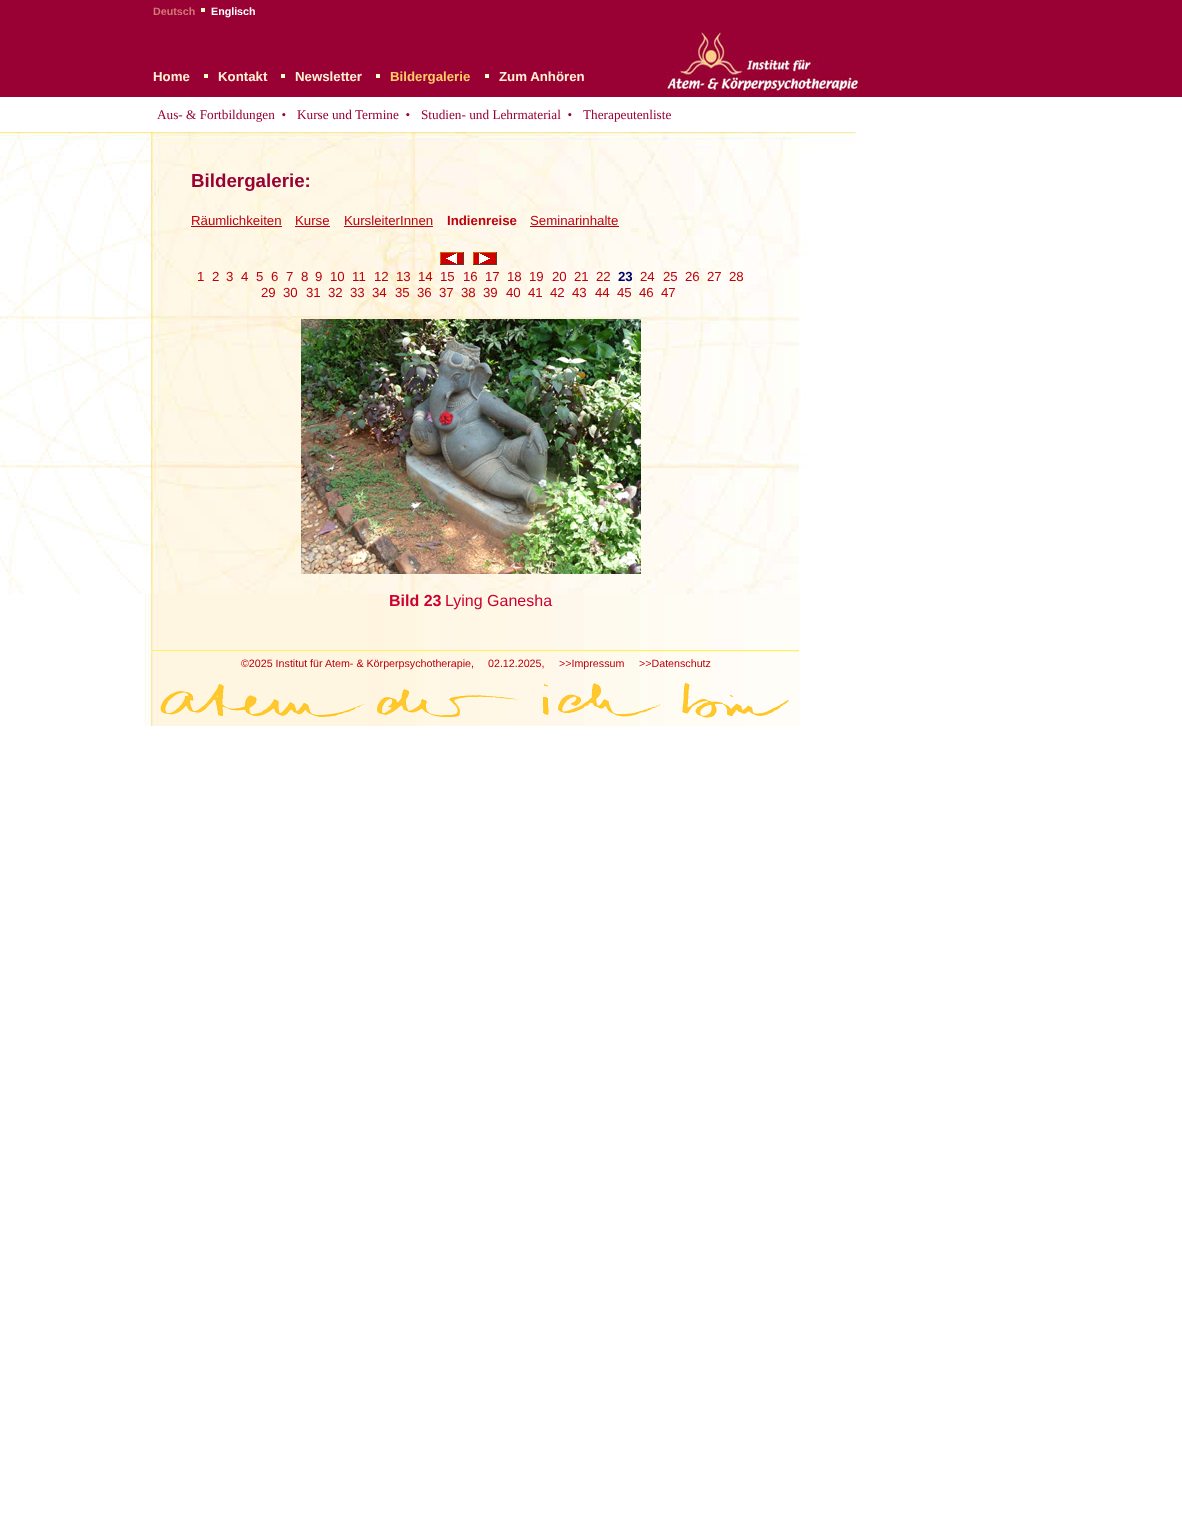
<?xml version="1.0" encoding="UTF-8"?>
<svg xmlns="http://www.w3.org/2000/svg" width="1182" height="1524">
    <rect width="100%" height="100%" fill="#FFFFFF"/>
    <rect x="0" y="0" width="1182" height="97" fill="#990134"/>
    <text x="153" y="15" font-family="Liberation Sans" font-size="10.7" font-weight="700" fill="#D47878">Deutsch</text>
    <rect x="201" y="8" width="4" height="4" fill="#FCFFC4"/>
    <text x="211" y="15" font-family="Liberation Sans" font-size="10.7" font-weight="700" fill="#FFFFFF">Englisch</text>
    <text x="153" y="81" font-family="Liberation Sans" font-size="13.25" font-weight="700" fill="#FFF0D0">Home</text>
    <rect x="204" y="74" width="4" height="4" fill="#FCFFC4"/>
    <text x="218" y="81" font-family="Liberation Sans" font-size="13.25" font-weight="700" fill="#FFF0D0">Kontakt</text>
    <rect x="281" y="74" width="4" height="4" fill="#FCFFC4"/>
    <text x="295" y="81" font-family="Liberation Sans" font-size="13.25" font-weight="700" fill="#FFF0D0">Newsletter</text>
    <rect x="376" y="74" width="4" height="4" fill="#FCFFC4"/>
    <text x="390" y="81" font-family="Liberation Sans" font-size="13.25" font-weight="700" fill="#FFCC66">Bildergalerie</text>
    <rect x="485" y="74" width="4" height="4" fill="#FCFFC4"/>
    <text x="499" y="81" font-family="Liberation Sans" font-size="13.25" font-weight="700" fill="#FFF0D0">Zum Anhören</text>
    <image x="665" y="32" width="196" height="60" href="img_01.png"/>
    <text x="157" y="119" font-family="Liberation Serif" font-size="13.25" fill="#990033" xml:space="preserve">Aus- &amp; Fortbildungen  •</text>
    <text x="297" y="119" font-family="Liberation Serif" font-size="13.25" fill="#990033" xml:space="preserve">Kurse und Termine  •</text>
    <text x="421" y="119" font-family="Liberation Serif" font-size="13.25" fill="#990033" xml:space="preserve">Studien- und Lehrmaterial  •</text>
    <text x="583" y="119" font-family="Liberation Serif" font-size="13.25" fill="#990033">Therapeutenliste</text>
    <image x="144" y="594" width="656" height="56" href="img_02.png"/>
    <image x="0" y="132" width="151" height="462" href="img_03.png"/>
    <image x="151" y="132" width="705" height="462" href="img_04.png"/>
    <text x="191" y="187" font-family="Liberation Sans" font-size="18.75" font-weight="700" fill="#990033">Bildergalerie:</text>
    <text x="191" y="225" font-family="Liberation Sans" font-size="13.25" fill="#BC000C">Räumlichkeiten</text>
    <rect x="191" y="226" width="91" height="1" fill="#BC000C"/>
    <text x="295" y="225" font-family="Liberation Sans" font-size="13.25" fill="#BC000C">Kurse</text>
    <rect x="295" y="226" width="35" height="1" fill="#BC000C"/>
    <text x="344" y="225" font-family="Liberation Sans" font-size="13.25" fill="#BC000C">KursleiterInnen</text>
    <rect x="344" y="226" width="89" height="1" fill="#BC000C"/>
    <text x="447" y="225" font-family="Liberation Sans" font-size="13.25" font-weight="700" fill="#BC000C">Indienreise</text>
    <text x="530" y="225" font-family="Liberation Sans" font-size="13.25" fill="#BC000C">Seminarinhalte</text>
    <rect x="530" y="226" width="89" height="1" fill="#BC000C"/>
    <image x="440" y="252" width="24" height="13" href="img_05.png"/>
    <image x="473" y="252" width="24" height="13" href="img_06.png"/>
    <text x="197" y="281" font-family="Liberation Sans" font-size="13.25" fill="#BC000C">1</text>
    <text x="212" y="281" font-family="Liberation Sans" font-size="13.25" fill="#BC000C">2</text>
    <text x="226" y="281" font-family="Liberation Sans" font-size="13.25" fill="#BC000C">3</text>
    <text x="241" y="281" font-family="Liberation Sans" font-size="13.25" fill="#BC000C">4</text>
    <text x="256" y="281" font-family="Liberation Sans" font-size="13.25" fill="#BC000C">5</text>
    <text x="271" y="281" font-family="Liberation Sans" font-size="13.25" fill="#BC000C">6</text>
    <text x="286" y="281" font-family="Liberation Sans" font-size="13.25" fill="#BC000C">7</text>
    <text x="301" y="281" font-family="Liberation Sans" font-size="13.25" fill="#BC000C">8</text>
    <text x="315" y="281" font-family="Liberation Sans" font-size="13.25" fill="#BC000C">9</text>
    <text x="330" y="281" font-family="Liberation Sans" font-size="13.25" fill="#BC000C">10</text>
    <text x="352" y="281" font-family="Liberation Sans" font-size="13.25" fill="#BC000C">11</text>
    <text x="374" y="281" font-family="Liberation Sans" font-size="13.25" fill="#BC000C">12</text>
    <text x="396" y="281" font-family="Liberation Sans" font-size="13.25" fill="#BC000C">13</text>
    <text x="418" y="281" font-family="Liberation Sans" font-size="13.25" fill="#BC000C">14</text>
    <text x="440" y="281" font-family="Liberation Sans" font-size="13.25" fill="#BC000C">15</text>
    <text x="463" y="281" font-family="Liberation Sans" font-size="13.25" fill="#BC000C">16</text>
    <text x="485" y="281" font-family="Liberation Sans" font-size="13.25" fill="#BC000C">17</text>
    <text x="507" y="281" font-family="Liberation Sans" font-size="13.25" fill="#BC000C">18</text>
    <text x="529" y="281" font-family="Liberation Sans" font-size="13.25" fill="#BC000C">19</text>
    <text x="552" y="281" font-family="Liberation Sans" font-size="13.25" fill="#BC000C">20</text>
    <text x="574" y="281" font-family="Liberation Sans" font-size="13.25" fill="#BC000C">21</text>
    <text x="596" y="281" font-family="Liberation Sans" font-size="13.25" fill="#BC000C">22</text>
    <text x="618" y="281" font-family="Liberation Sans" font-size="13.25" font-weight="700" fill="#000066">23</text>
    <text x="640" y="281" font-family="Liberation Sans" font-size="13.25" fill="#BC000C">24</text>
    <text x="663" y="281" font-family="Liberation Sans" font-size="13.25" fill="#BC000C">25</text>
    <text x="685" y="281" font-family="Liberation Sans" font-size="13.25" fill="#BC000C">26</text>
    <text x="707" y="281" font-family="Liberation Sans" font-size="13.25" fill="#BC000C">27</text>
    <text x="729" y="281" font-family="Liberation Sans" font-size="13.25" fill="#BC000C">28</text>
    <text x="261" y="297" font-family="Liberation Sans" font-size="13.25" fill="#BC000C">29</text>
    <text x="283" y="297" font-family="Liberation Sans" font-size="13.25" fill="#BC000C">30</text>
    <text x="306" y="297" font-family="Liberation Sans" font-size="13.25" fill="#BC000C">31</text>
    <text x="328" y="297" font-family="Liberation Sans" font-size="13.25" fill="#BC000C">32</text>
    <text x="350" y="297" font-family="Liberation Sans" font-size="13.25" fill="#BC000C">33</text>
    <text x="372" y="297" font-family="Liberation Sans" font-size="13.25" fill="#BC000C">34</text>
    <text x="395" y="297" font-family="Liberation Sans" font-size="13.25" fill="#BC000C">35</text>
    <text x="417" y="297" font-family="Liberation Sans" font-size="13.25" fill="#BC000C">36</text>
    <text x="439" y="297" font-family="Liberation Sans" font-size="13.25" fill="#BC000C">37</text>
    <text x="461" y="297" font-family="Liberation Sans" font-size="13.25" fill="#BC000C">38</text>
    <text x="483" y="297" font-family="Liberation Sans" font-size="13.25" fill="#BC000C">39</text>
    <text x="506" y="297" font-family="Liberation Sans" font-size="13.25" fill="#BC000C">40</text>
    <text x="528" y="297" font-family="Liberation Sans" font-size="13.25" fill="#BC000C">41</text>
    <text x="550" y="297" font-family="Liberation Sans" font-size="13.25" fill="#BC000C">42</text>
    <text x="572" y="297" font-family="Liberation Sans" font-size="13.25" fill="#BC000C">43</text>
    <text x="595" y="297" font-family="Liberation Sans" font-size="13.25" fill="#BC000C">44</text>
    <text x="617" y="297" font-family="Liberation Sans" font-size="13.25" fill="#BC000C">45</text>
    <text x="639" y="297" font-family="Liberation Sans" font-size="13.25" fill="#BC000C">46</text>
    <text x="661" y="297" font-family="Liberation Sans" font-size="13.25" fill="#BC000C">47</text>
    <image x="301" y="319" width="340" height="255" href="img_07.png"/>
    <text x="389" y="606" font-family="Liberation Sans" font-size="16" font-weight="700" fill="#CC0033">Bild 23</text>
    <text x="445" y="606" font-family="Liberation Sans" font-size="16" fill="#CC0033">Lying Ganesha</text>
    <image x="144" y="650" width="656" height="76" href="img_08.png"/>
    <image x="151" y="650" width="648" height="2" href="img_09.png"/>
    <text x="241" y="667" font-family="Liberation Sans" font-size="10.7" fill="#BC000C">©2025 Institut für Atem- &amp; Körperpsychotherapie,</text>
    <text x="488" y="667" font-family="Liberation Sans" font-size="10.7" fill="#BC000C">02.12.2025,</text>
    <text x="559" y="667" font-family="Liberation Sans" font-size="10.7" fill="#BC000C">&gt;&gt;Impressum</text>
    <text x="639" y="667" font-family="Liberation Sans" font-size="10.7" fill="#BC000C">&gt;&gt;Datenschutz</text>
    <image x="160" y="683" width="629" height="35" href="img_10.png"/>
</svg>
